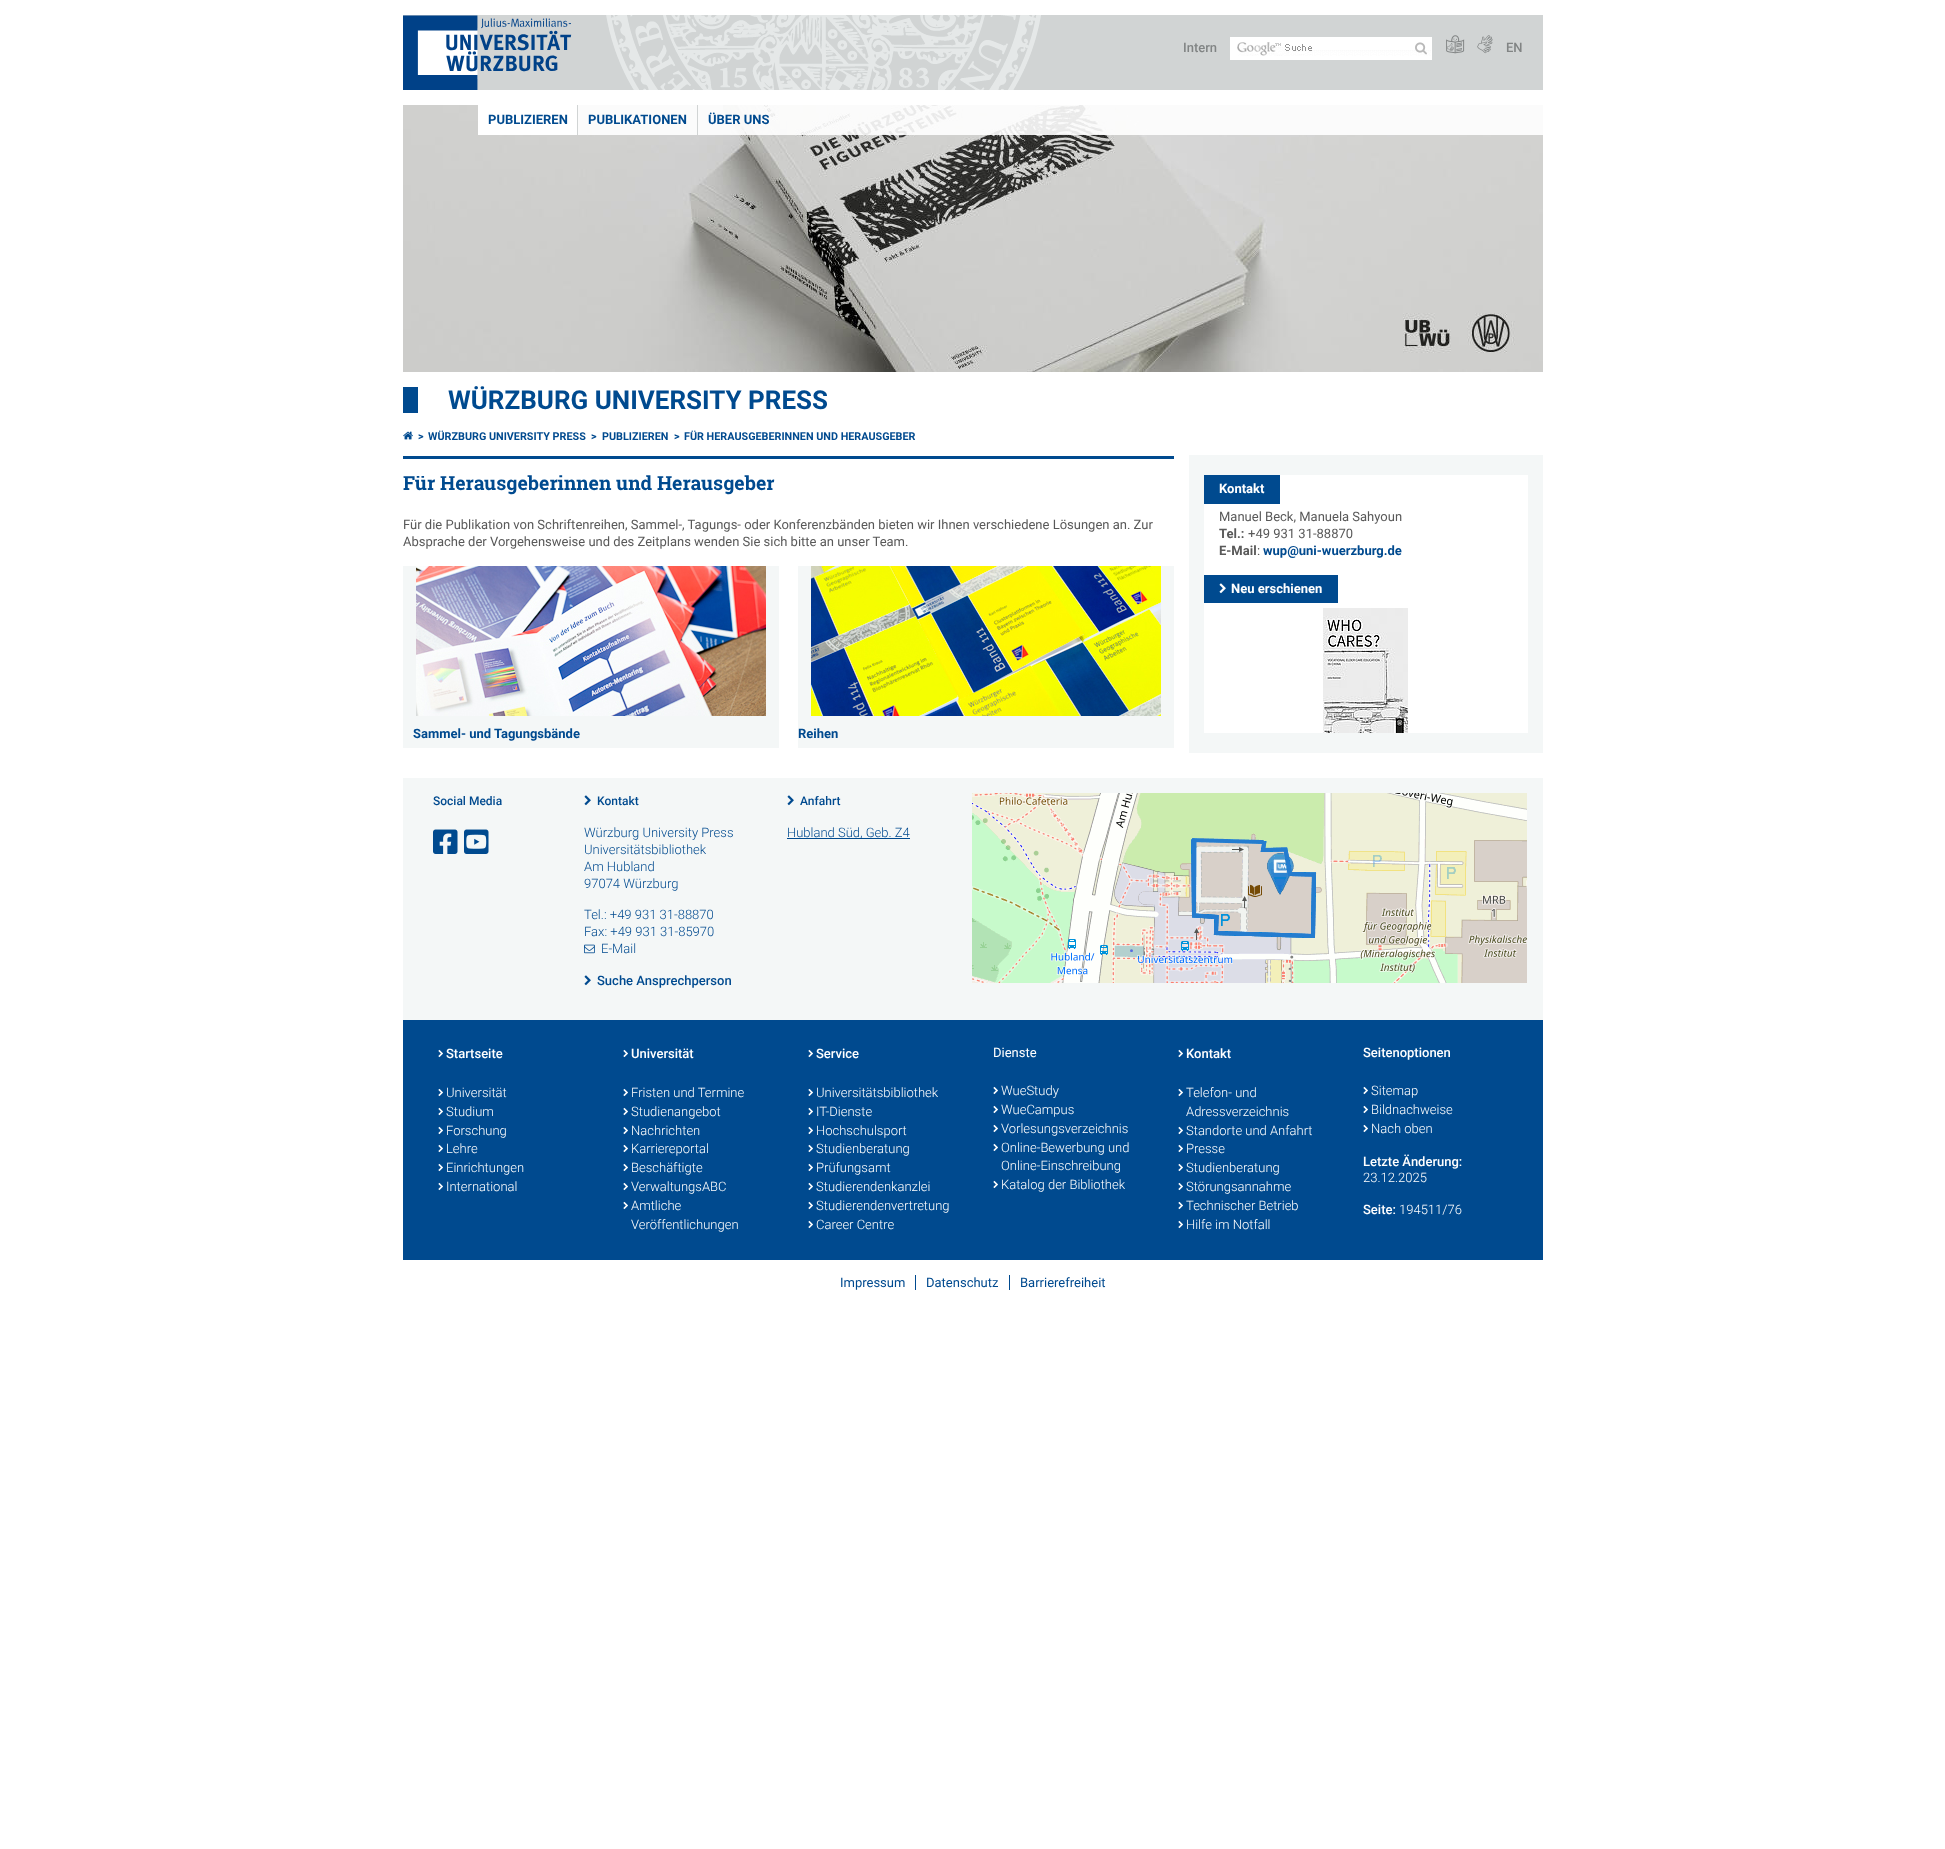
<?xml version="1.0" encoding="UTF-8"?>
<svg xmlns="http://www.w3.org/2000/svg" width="1945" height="1849">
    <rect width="100%" height="100%" fill="#FFFFFF"/>
    <rect x="403" y="15" width="1140" height="75" fill="#D1D4D4"/>
    <image x="606" y="15" width="435" height="75" href="img_01.png"/>
    <image x="403" y="15" width="169" height="75" href="img_02.png"/>
    <text x="1183" y="52" font-family="Roboto" font-size="13" font-weight="500" fill="#818484">Intern</text>
    <rect x="1230" y="37" width="202" height="23" fill="#FFFFFF"/>
    <image x="1237" y="42" width="194" height="14" href="img_03.png"/>
    <image x="1415" y="42" width="12" height="13" href="img_04.png"/>
    <image x="1446" y="35" width="19" height="19" href="img_05.png"/>
    <image x="1477" y="35" width="16" height="19" href="img_06.png"/>
    <text x="1506" y="52" font-family="Roboto" font-size="13" font-weight="500" fill="#818484">EN</text>
    <image x="403" y="105" width="1140" height="267" href="img_07.png"/>
    <rect x="578" y="105" width="965" height="30" fill="#FFFFFF" fill-opacity="0.9"/>
    <rect x="478" y="105" width="99" height="30" fill="#FFFFFF"/>
    <text x="488" y="124" font-family="Roboto" font-size="13" font-weight="700" fill="#004A8F">PUBLIZIEREN</text>
    <rect x="577" y="105" width="1" height="30" fill="#D1D4D4"/>
    <text x="588" y="124" font-family="Roboto" font-size="13" font-weight="700" fill="#004A8F">PUBLIKATIONEN</text>
    <rect x="697" y="105" width="1" height="30" fill="#D1D4D4"/>
    <text x="708" y="124" font-family="Roboto" font-size="13" font-weight="700" fill="#004A8F">ÜBER UNS</text>
    <rect x="403" y="387" width="15" height="26" fill="#004A8F"/>
    <text x="448" y="409" font-family="Roboto" font-size="26" font-weight="700" fill="#004A8F">WÜRZBURG UNIVERSITY PRESS</text>
    <rect x="403" y="456" width="771" height="3" fill="#004A8F"/>
    <image x="403" y="431" width="10" height="9" href="img_08.png"/>
    <text x="418" y="440" font-family="Roboto" font-size="10.8" font-weight="700" fill="#004A8F">&gt;</text>
    <text x="428" y="440" font-family="Roboto" font-size="10.8" font-weight="700" fill="#004A8F">WÜRZBURG UNIVERSITY PRESS</text>
    <text x="591" y="440" font-family="Roboto" font-size="10.8" font-weight="700" fill="#004A8F">&gt;</text>
    <text x="602" y="440" font-family="Roboto" font-size="10.8" font-weight="700" fill="#004A8F">PUBLIZIEREN</text>
    <text x="674" y="440" font-family="Roboto" font-size="10.8" font-weight="700" fill="#004A8F">&gt;</text>
    <text x="684" y="440" font-family="Roboto" font-size="10.8" font-weight="700" fill="#004A8F">FÜR HERAUSGEBERINNEN UND HERAUSGEBER</text>
    <text x="403" y="490" font-family="Roboto Slab" font-size="19.5" font-weight="700" fill="#004A8F">Für Herausgeberinnen und Herausgeber</text>
    <text font-family="Roboto" font-size="13" fill="#595959">
        <tspan x="403" y="529">Für die Publikation von Schriftenreihen, Sammel-, Tagungs- oder Konferenzbänden bieten wir Ihnen verschiedene Lösungen an. Zur</tspan>
        <tspan x="403" y="546">Absprache der Vorgehensweise und des Zeitplans wenden Sie sich bitte an unser Team.</tspan>
    </text>
    <rect x="403" y="566" width="376" height="182" fill="#F4F7F7"/>
    <image x="416" y="566" width="350" height="150" href="img_09.png"/>
    <text x="413" y="738" font-family="Roboto" font-size="13" font-weight="700" fill="#004A8F">Sammel- und Tagungsbände</text>
    <rect x="798" y="566" width="376" height="182" fill="#F4F7F7"/>
    <image x="811" y="566" width="350" height="150" href="img_10.png"/>
    <text x="798" y="738" font-family="Roboto" font-size="13" font-weight="700" fill="#004A8F">Reihen</text>
    <rect x="1204" y="455" width="324" height="20" fill="#F4F7F7"/>
    <rect x="1528" y="455" width="15" height="278" fill="#F4F7F7"/>
    <rect x="1204" y="733" width="339" height="20" fill="#F4F7F7"/>
    <rect x="1189" y="455" width="15" height="298" fill="#F4F7F7"/>
    <rect x="1204" y="475" width="76" height="29" fill="#004A8F"/>
    <text x="1219" y="493" font-family="Roboto" font-size="13" font-weight="700" fill="#FFFFFF">Kontakt</text>
    <text x="1219" y="521" font-family="Roboto" font-size="13" fill="#595959">Manuel Beck, Manuela Sahyoun</text>
    <text x="1219" y="538" font-family="Roboto" font-size="13" font-weight="700" fill="#595959">Tel.:</text>
    <text x="1248" y="538" font-family="Roboto" font-size="13" fill="#595959">+49 931 31-88870</text>
    <text x="1219" y="555" font-family="Roboto" font-size="13" font-weight="700" fill="#595959">E-Mail</text>
    <text x="1257" y="555" font-family="Roboto" font-size="13" fill="#595959">:</text>
    <text x="1263" y="555" font-family="Roboto" font-size="13" font-weight="700" fill="#004A8F">wup@uni-wuerzburg.de</text>
    <rect x="1204" y="575" width="134" height="28" fill="#004A8F"/>
    <image x="1219" y="583" width="7" height="11" href="img_11.png"/>
    <text x="1231" y="593" font-family="Roboto" font-size="13" font-weight="700" fill="#FFFFFF">Neu erschienen</text>
    <image x="1323" y="608" width="85" height="125" href="img_12.png"/>
    <rect x="403" y="778" width="1140" height="242" fill="#F4F7F7"/>
    <text x="433" y="805" font-family="Roboto" font-size="12" font-weight="500" fill="#004A8F">Social Media</text>
    <image x="433" y="829" width="25" height="25" href="img_13.png"/>
    <image x="464" y="829" width="25" height="25" href="img_14.png"/>
    <image x="584" y="795" width="7" height="11" href="img_15.png"/>
    <text x="597" y="805" font-family="Roboto" font-size="12" font-weight="500" fill="#004A8F">Kontakt</text>
    <text font-family="Roboto" font-size="13" font-weight="300" fill="#004A8F">
        <tspan x="584" y="837">Würzburg University Press</tspan>
        <tspan x="584" y="854">Universitätsbibliothek</tspan>
        <tspan x="584" y="871">Am Hubland</tspan>
        <tspan x="584" y="888">97074 Würzburg</tspan>
    </text>
    <text font-family="Roboto" font-size="13" font-weight="300" fill="#004A8F">
        <tspan x="584" y="919">Tel.: +49 931 31-88870</tspan>
        <tspan x="584" y="936">Fax: +49 931 31-85970</tspan>
    </text>
    <image x="584" y="944" width="11" height="10" href="img_16.png"/>
    <text x="601" y="953" font-family="Roboto" font-size="13" font-weight="300" fill="#004A8F">E-Mail</text>
    <image x="584" y="975" width="7" height="11" href="img_15.png"/>
    <text x="597" y="985" font-family="Roboto" font-size="13" font-weight="500" fill="#004A8F">Suche Ansprechperson</text>
    <image x="787" y="795" width="7" height="11" href="img_15.png"/>
    <text x="800" y="805" font-family="Roboto" font-size="12" font-weight="500" fill="#004A8F">Anfahrt</text>
    <rect x="787" y="838" width="123" height="1" fill="#004A8F"/>
    <text x="787" y="837" font-family="Roboto" font-size="13" font-weight="300" fill="#004A8F">Hubland Süd, Geb. Z4</text>
    <image x="972" y="793" width="555" height="190" href="img_17.png"/>
    <rect x="403" y="1020" width="1140" height="240" fill="#004A8F"/>
    <image x="438" y="1049" width="5" height="9" href="img_18.png"/>
    <text x="446" y="1058" font-family="Roboto" font-size="13" font-weight="500" fill="#FFFFFF">Startseite</text>
    <image x="438" y="1088" width="5" height="9" href="img_18.png"/>
    <text x="446" y="1097" font-family="Roboto" font-size="13" font-weight="300" fill="#FFFFFF">Universität</text>
    <image x="438" y="1107" width="5" height="9" href="img_18.png"/>
    <text x="446" y="1116" font-family="Roboto" font-size="13" font-weight="300" fill="#FFFFFF">Studium</text>
    <image x="438" y="1126" width="5" height="9" href="img_18.png"/>
    <text x="446" y="1135" font-family="Roboto" font-size="13" font-weight="300" fill="#FFFFFF">Forschung</text>
    <image x="438" y="1144" width="5" height="9" href="img_18.png"/>
    <text x="446" y="1153" font-family="Roboto" font-size="13" font-weight="300" fill="#FFFFFF">Lehre</text>
    <image x="438" y="1163" width="5" height="9" href="img_18.png"/>
    <text x="446" y="1172" font-family="Roboto" font-size="13" font-weight="300" fill="#FFFFFF">Einrichtungen</text>
    <image x="438" y="1182" width="5" height="9" href="img_18.png"/>
    <text x="446" y="1191" font-family="Roboto" font-size="13" font-weight="300" fill="#FFFFFF">International</text>
    <image x="623" y="1049" width="5" height="9" href="img_18.png"/>
    <text x="631" y="1058" font-family="Roboto" font-size="13" font-weight="500" fill="#FFFFFF">Universität</text>
    <image x="623" y="1088" width="5" height="9" href="img_18.png"/>
    <text x="631" y="1097" font-family="Roboto" font-size="13" font-weight="300" fill="#FFFFFF">Fristen und Termine</text>
    <image x="623" y="1107" width="5" height="9" href="img_18.png"/>
    <text x="631" y="1116" font-family="Roboto" font-size="13" font-weight="300" fill="#FFFFFF">Studienangebot</text>
    <image x="623" y="1126" width="5" height="9" href="img_18.png"/>
    <text x="631" y="1135" font-family="Roboto" font-size="13" font-weight="300" fill="#FFFFFF">Nachrichten</text>
    <image x="623" y="1144" width="5" height="9" href="img_18.png"/>
    <text x="631" y="1153" font-family="Roboto" font-size="13" font-weight="300" fill="#FFFFFF">Karriereportal</text>
    <image x="623" y="1163" width="5" height="9" href="img_18.png"/>
    <text x="631" y="1172" font-family="Roboto" font-size="13" font-weight="300" fill="#FFFFFF">Beschäftigte</text>
    <image x="623" y="1182" width="5" height="9" href="img_18.png"/>
    <text x="631" y="1191" font-family="Roboto" font-size="13" font-weight="300" fill="#FFFFFF">VerwaltungsABC</text>
    <image x="623" y="1201" width="5" height="9" href="img_18.png"/>
    <text font-family="Roboto" font-size="13" font-weight="300" fill="#FFFFFF">
        <tspan x="631" y="1210">Amtliche</tspan>
        <tspan x="631" y="1229">Veröffentlichungen</tspan>
    </text>
    <image x="808" y="1049" width="5" height="9" href="img_18.png"/>
    <text x="816" y="1058" font-family="Roboto" font-size="13" font-weight="500" fill="#FFFFFF">Service</text>
    <image x="808" y="1088" width="5" height="9" href="img_18.png"/>
    <text x="816" y="1097" font-family="Roboto" font-size="13" font-weight="300" fill="#FFFFFF">Universitätsbibliothek</text>
    <image x="808" y="1107" width="5" height="9" href="img_18.png"/>
    <text x="816" y="1116" font-family="Roboto" font-size="13" font-weight="300" fill="#FFFFFF">IT-Dienste</text>
    <image x="808" y="1126" width="5" height="9" href="img_18.png"/>
    <text x="816" y="1135" font-family="Roboto" font-size="13" font-weight="300" fill="#FFFFFF">Hochschulsport</text>
    <image x="808" y="1144" width="5" height="9" href="img_18.png"/>
    <text x="816" y="1153" font-family="Roboto" font-size="13" font-weight="300" fill="#FFFFFF">Studienberatung</text>
    <image x="808" y="1163" width="5" height="9" href="img_18.png"/>
    <text x="816" y="1172" font-family="Roboto" font-size="13" font-weight="300" fill="#FFFFFF">Prüfungsamt</text>
    <image x="808" y="1182" width="5" height="9" href="img_18.png"/>
    <text x="816" y="1191" font-family="Roboto" font-size="13" font-weight="300" fill="#FFFFFF">Studierendenkanzlei</text>
    <image x="808" y="1201" width="5" height="9" href="img_18.png"/>
    <text x="816" y="1210" font-family="Roboto" font-size="13" font-weight="300" fill="#FFFFFF">Studierendenvertretung</text>
    <image x="808" y="1220" width="5" height="9" href="img_18.png"/>
    <text x="816" y="1229" font-family="Roboto" font-size="13" font-weight="300" fill="#FFFFFF">Career Centre</text>
    <text x="993" y="1057" font-family="Roboto" font-size="13" fill="#FFFFFF">Dienste</text>
    <image x="993" y="1086" width="5" height="9" href="img_18.png"/>
    <text x="1001" y="1095" font-family="Roboto" font-size="13" font-weight="300" fill="#FFFFFF">WueStudy</text>
    <image x="993" y="1105" width="5" height="9" href="img_18.png"/>
    <text x="1001" y="1114" font-family="Roboto" font-size="13" font-weight="300" fill="#FFFFFF">WueCampus</text>
    <image x="993" y="1124" width="5" height="9" href="img_18.png"/>
    <text x="1001" y="1133" font-family="Roboto" font-size="13" font-weight="300" fill="#FFFFFF">Vorlesungsverzeichnis</text>
    <image x="993" y="1143" width="5" height="9" href="img_18.png"/>
    <text font-family="Roboto" font-size="13" font-weight="300" fill="#FFFFFF">
        <tspan x="1001" y="1152">Online-Bewerbung und</tspan>
        <tspan x="1001" y="1170">Online-Einschreibung</tspan>
    </text>
    <image x="993" y="1180" width="5" height="9" href="img_18.png"/>
    <text x="1001" y="1189" font-family="Roboto" font-size="13" font-weight="300" fill="#FFFFFF">Katalog der Bibliothek</text>
    <image x="1178" y="1049" width="5" height="9" href="img_18.png"/>
    <text x="1186" y="1058" font-family="Roboto" font-size="13" font-weight="500" fill="#FFFFFF">Kontakt</text>
    <image x="1178" y="1088" width="5" height="9" href="img_18.png"/>
    <text font-family="Roboto" font-size="13" font-weight="300" fill="#FFFFFF">
        <tspan x="1186" y="1097">Telefon- und</tspan>
        <tspan x="1186" y="1116">Adressverzeichnis</tspan>
    </text>
    <image x="1178" y="1126" width="5" height="9" href="img_18.png"/>
    <text x="1186" y="1135" font-family="Roboto" font-size="13" font-weight="300" fill="#FFFFFF">Standorte und Anfahrt</text>
    <image x="1178" y="1144" width="5" height="9" href="img_18.png"/>
    <text x="1186" y="1153" font-family="Roboto" font-size="13" font-weight="300" fill="#FFFFFF">Presse</text>
    <image x="1178" y="1163" width="5" height="9" href="img_18.png"/>
    <text x="1186" y="1172" font-family="Roboto" font-size="13" font-weight="300" fill="#FFFFFF">Studienberatung</text>
    <image x="1178" y="1182" width="5" height="9" href="img_18.png"/>
    <text x="1186" y="1191" font-family="Roboto" font-size="13" font-weight="300" fill="#FFFFFF">Störungsannahme</text>
    <image x="1178" y="1201" width="5" height="9" href="img_18.png"/>
    <text x="1186" y="1210" font-family="Roboto" font-size="13" font-weight="300" fill="#FFFFFF">Technischer Betrieb</text>
    <image x="1178" y="1220" width="5" height="9" href="img_18.png"/>
    <text x="1186" y="1229" font-family="Roboto" font-size="13" font-weight="300" fill="#FFFFFF">Hilfe im Notfall</text>
    <text x="1363" y="1057" font-family="Roboto" font-size="13" font-weight="500" fill="#FFFFFF">Seitenoptionen</text>
    <image x="1363" y="1086" width="5" height="9" href="img_18.png"/>
    <text x="1371" y="1095" font-family="Roboto" font-size="13" font-weight="300" fill="#FFFFFF">Sitemap</text>
    <image x="1363" y="1105" width="5" height="9" href="img_18.png"/>
    <text x="1371" y="1114" font-family="Roboto" font-size="13" font-weight="300" fill="#FFFFFF">Bildnachweise</text>
    <image x="1363" y="1124" width="5" height="9" href="img_18.png"/>
    <text x="1371" y="1133" font-family="Roboto" font-size="13" font-weight="300" fill="#FFFFFF">Nach oben</text>
    <text x="1363" y="1166" font-family="Roboto" font-size="13" font-weight="500" fill="#FFFFFF">Letzte Änderung:</text>
    <text x="1363" y="1182" font-family="Roboto" font-size="13" font-weight="300" fill="#FFFFFF">23.12.2025</text>
    <text x="1363" y="1214" font-family="Roboto" font-size="13" font-weight="500" fill="#FFFFFF">Seite:</text>
    <text x="1399" y="1214" font-family="Roboto" font-size="13" font-weight="300" fill="#FFFFFF">194511/76</text>
    <text x="840" y="1287" font-family="Roboto" font-size="13" fill="#004A8F">Impressum</text>
    <text x="926" y="1287" font-family="Roboto" font-size="13" fill="#004A8F">Datenschutz</text>
    <rect x="915" y="1275" width="1" height="15" fill="#004A8F"/>
    <text x="1020" y="1287" font-family="Roboto" font-size="13" fill="#004A8F">Barrierefreiheit</text>
    <rect x="1009" y="1275" width="1" height="15" fill="#004A8F"/>
</svg>
